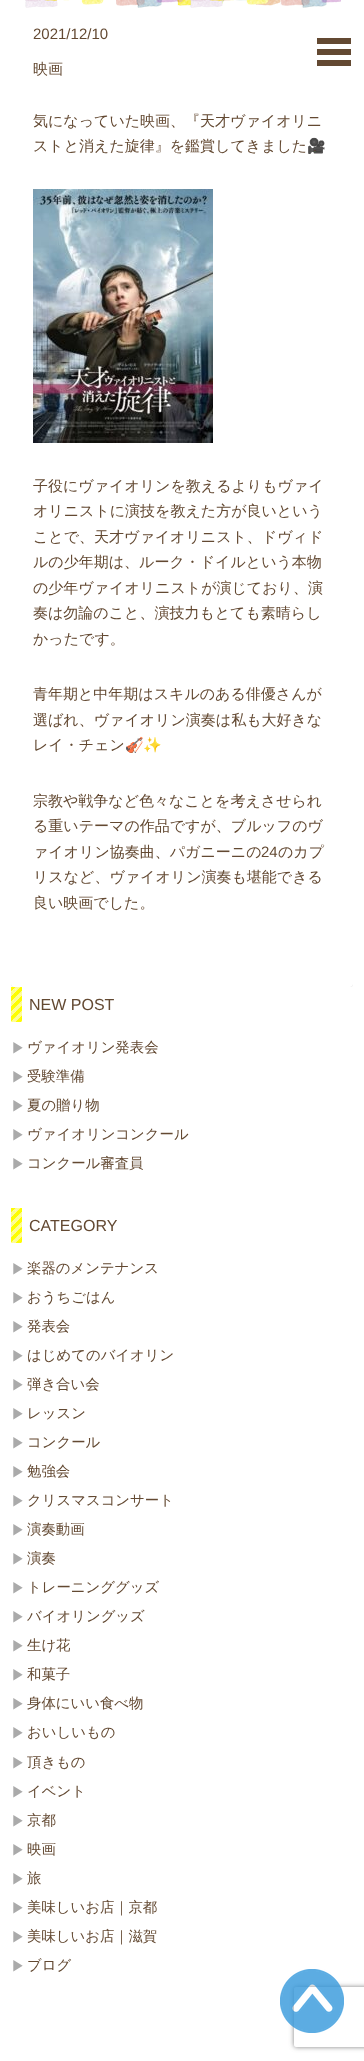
<?xml version="1.0" encoding="UTF-8"?>
<svg xmlns="http://www.w3.org/2000/svg" width="364" height="2061">
    <defs>
        <filter id="blur1" x="-50%" y="-200%" width="200%" height="500%"><feGaussianBlur stdDeviation="0.5"/></filter>
        <clipPath id="clip1"><path d="M 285 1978 H 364 V 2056 H 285 Z M 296 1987 H 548 C 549 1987 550 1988 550 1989 V 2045 C 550 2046 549 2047 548 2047 H 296 C 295 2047 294 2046 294 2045 V 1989 C 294 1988 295 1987 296 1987 Z" clip-rule="evenodd"/></clipPath>
        <filter id="blur2" x="-50%" y="-200%" width="200%" height="500%"><feGaussianBlur stdDeviation="2.5"/></filter>
    </defs>
    <rect width="100%" height="100%" fill="#FFFFFF"/>
    <rect x="11" y="-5" width="342" height="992" rx="3" fill="#000000" fill-opacity="0.2" filter="url(#blur1)"/>
    <rect x="11" y="-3" width="342" height="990" rx="3" fill="#FFFFFF"/>
    <image x="25" y="0" width="316" height="8" href="img_01.png"/>
    <text x="33" y="39" font-family="Liberation Sans" font-size="15" fill="#634932">2021/12/10</text>
    <text x="33" y="74" font-family="WenQuanYi Zen Hei" font-size="15" font-weight="500" fill="#634932">映画</text>
    <text font-family="WenQuanYi Zen Hei" font-size="15" font-weight="500" fill="#634932">
        <tspan x="33" y="126">気になっていた映画、『天才ヴァイオリニ</tspan>
        <tspan x="33" y="151">ストと消えた旋律』を鑑賞してきました</tspan>
    </text>
    <text x="307" y="151" font-family="Noto Color Emoji" font-size="15" fill="#634932">🎥</text>
    <image x="33" y="189" width="180" height="254" href="img_02.png"/>
    <text font-family="WenQuanYi Zen Hei" font-size="15" font-weight="500" fill="#634932">
        <tspan x="33" y="491">子役にヴァイオリンを教えるよりもヴァイ</tspan>
        <tspan x="33" y="516">オリニストに演技を教えた方が良いという</tspan>
        <tspan x="33" y="542">ことで、天才ヴァイオリニスト、ドヴィド</tspan>
        <tspan x="33" y="567">ルの少年期は、ルーク・ドイルという本物</tspan>
        <tspan x="33" y="593">の少年ヴァイオリニストが演じており、演</tspan>
        <tspan x="33" y="618">奏は勿論のこと、演技力もとても素晴らし</tspan>
        <tspan x="33" y="644">かったです。</tspan>
    </text>
    <text font-family="WenQuanYi Zen Hei" font-size="15" font-weight="500" fill="#634932">
        <tspan x="33" y="699">青年期と中年期はスキルのある俳優さんが</tspan>
        <tspan x="33" y="725">選ばれ、ヴァイオリン演奏は私も大好きな</tspan>
        <tspan x="33" y="750">レイ・チェン</tspan>
    </text>
    <text x="125" y="750" font-family="Noto Color Emoji" font-size="15" fill="#634932">🎻✨</text>
    <text font-family="WenQuanYi Zen Hei" font-size="15" font-weight="500" fill="#634932">
        <tspan x="33" y="806">宗教や戦争など色々なことを考えさせられ</tspan>
        <tspan x="33" y="831">る重いテーマの作品ですが、ブルッフのヴ</tspan>
        <tspan x="33" y="857">ァイオリン協奏曲、パガニーニの</tspan>
    </text>
    <text x="261" y="857" font-family="Liberation Sans" font-size="15" fill="#634932">24</text>
    <text x="278" y="857" font-family="WenQuanYi Zen Hei" font-size="15" font-weight="500" fill="#634932">のカプ</text>
    <text font-family="WenQuanYi Zen Hei" font-size="15" font-weight="500" fill="#634932">
        <tspan x="33" y="882">リスなど、ヴァイオリン演奏も堪能できる</tspan>
        <tspan x="33" y="908">良い映画でした。</tspan>
    </text>
    <image x="11" y="987" width="11" height="35" href="img_03.png"/>
    <text x="29" y="1010" font-family="Liberation Sans" font-size="16" fill="#634932">NEW POST</text>
    <text x="11" y="1053" font-family="WenQuanYi Zen Hei" font-size="14.4" font-weight="500" fill="#AAAAAA">▶</text>
    <text x="27" y="1052" font-family="WenQuanYi Zen Hei" font-size="14.4" font-weight="500" fill="#634932">ヴァイオリン発表会</text>
    <text x="11" y="1082" font-family="WenQuanYi Zen Hei" font-size="14.4" font-weight="500" fill="#AAAAAA">▶</text>
    <text x="27" y="1081" font-family="WenQuanYi Zen Hei" font-size="14.4" font-weight="500" fill="#634932">受験準備</text>
    <text x="11" y="1111" font-family="WenQuanYi Zen Hei" font-size="14.4" font-weight="500" fill="#AAAAAA">▶</text>
    <text x="27" y="1110" font-family="WenQuanYi Zen Hei" font-size="14.4" font-weight="500" fill="#634932">夏の贈り物</text>
    <text x="11" y="1140" font-family="WenQuanYi Zen Hei" font-size="14.4" font-weight="500" fill="#AAAAAA">▶</text>
    <text x="27" y="1139" font-family="WenQuanYi Zen Hei" font-size="14.4" font-weight="500" fill="#634932">ヴァイオリンコンクール</text>
    <text x="11" y="1169" font-family="WenQuanYi Zen Hei" font-size="14.4" font-weight="500" fill="#AAAAAA">▶</text>
    <text x="27" y="1168" font-family="WenQuanYi Zen Hei" font-size="14.4" font-weight="500" fill="#634932">コンクール審査員</text>
    <image x="11" y="1208" width="11" height="35" href="img_03.png"/>
    <text x="29" y="1231" font-family="Liberation Sans" font-size="16" fill="#634932">CATEGORY</text>
    <text x="11" y="1274" font-family="WenQuanYi Zen Hei" font-size="14.4" font-weight="500" fill="#AAAAAA">▶</text>
    <text x="27" y="1273" font-family="WenQuanYi Zen Hei" font-size="14.4" font-weight="500" fill="#634932">楽器のメンテナンス</text>
    <text x="11" y="1303" font-family="WenQuanYi Zen Hei" font-size="14.4" font-weight="500" fill="#AAAAAA">▶</text>
    <text x="27" y="1302" font-family="WenQuanYi Zen Hei" font-size="14.4" font-weight="500" fill="#634932">おうちごはん</text>
    <text x="11" y="1332" font-family="WenQuanYi Zen Hei" font-size="14.4" font-weight="500" fill="#AAAAAA">▶</text>
    <text x="27" y="1331" font-family="WenQuanYi Zen Hei" font-size="14.4" font-weight="500" fill="#634932">発表会</text>
    <text x="11" y="1361" font-family="WenQuanYi Zen Hei" font-size="14.4" font-weight="500" fill="#AAAAAA">▶</text>
    <text x="27" y="1360" font-family="WenQuanYi Zen Hei" font-size="14.4" font-weight="500" fill="#634932">はじめてのバイオリン</text>
    <text x="11" y="1390" font-family="WenQuanYi Zen Hei" font-size="14.4" font-weight="500" fill="#AAAAAA">▶</text>
    <text x="27" y="1389" font-family="WenQuanYi Zen Hei" font-size="14.4" font-weight="500" fill="#634932">弾き合い会</text>
    <text x="11" y="1419" font-family="WenQuanYi Zen Hei" font-size="14.4" font-weight="500" fill="#AAAAAA">▶</text>
    <text x="27" y="1418" font-family="WenQuanYi Zen Hei" font-size="14.4" font-weight="500" fill="#634932">レッスン</text>
    <text x="11" y="1448" font-family="WenQuanYi Zen Hei" font-size="14.4" font-weight="500" fill="#AAAAAA">▶</text>
    <text x="27" y="1447" font-family="WenQuanYi Zen Hei" font-size="14.4" font-weight="500" fill="#634932">コンクール</text>
    <text x="11" y="1477" font-family="WenQuanYi Zen Hei" font-size="14.4" font-weight="500" fill="#AAAAAA">▶</text>
    <text x="27" y="1476" font-family="WenQuanYi Zen Hei" font-size="14.4" font-weight="500" fill="#634932">勉強会</text>
    <text x="11" y="1506" font-family="WenQuanYi Zen Hei" font-size="14.4" font-weight="500" fill="#AAAAAA">▶</text>
    <text x="27" y="1505" font-family="WenQuanYi Zen Hei" font-size="14.4" font-weight="500" fill="#634932">クリスマスコンサート</text>
    <text x="11" y="1535" font-family="WenQuanYi Zen Hei" font-size="14.4" font-weight="500" fill="#AAAAAA">▶</text>
    <text x="27" y="1534" font-family="WenQuanYi Zen Hei" font-size="14.4" font-weight="500" fill="#634932">演奏動画</text>
    <text x="11" y="1564" font-family="WenQuanYi Zen Hei" font-size="14.4" font-weight="500" fill="#AAAAAA">▶</text>
    <text x="27" y="1563" font-family="WenQuanYi Zen Hei" font-size="14.4" font-weight="500" fill="#634932">演奏</text>
    <text x="11" y="1593" font-family="WenQuanYi Zen Hei" font-size="14.4" font-weight="500" fill="#AAAAAA">▶</text>
    <text x="27" y="1592" font-family="WenQuanYi Zen Hei" font-size="14.4" font-weight="500" fill="#634932">トレーニンググッズ</text>
    <text x="11" y="1622" font-family="WenQuanYi Zen Hei" font-size="14.4" font-weight="500" fill="#AAAAAA">▶</text>
    <text x="27" y="1621" font-family="WenQuanYi Zen Hei" font-size="14.4" font-weight="500" fill="#634932">バイオリングッズ</text>
    <text x="11" y="1651" font-family="WenQuanYi Zen Hei" font-size="14.4" font-weight="500" fill="#AAAAAA">▶</text>
    <text x="27" y="1650" font-family="WenQuanYi Zen Hei" font-size="14.4" font-weight="500" fill="#634932">生け花</text>
    <text x="11" y="1680" font-family="WenQuanYi Zen Hei" font-size="14.4" font-weight="500" fill="#AAAAAA">▶</text>
    <text x="27" y="1679" font-family="WenQuanYi Zen Hei" font-size="14.4" font-weight="500" fill="#634932">和菓子</text>
    <text x="11" y="1709" font-family="WenQuanYi Zen Hei" font-size="14.4" font-weight="500" fill="#AAAAAA">▶</text>
    <text x="27" y="1708" font-family="WenQuanYi Zen Hei" font-size="14.4" font-weight="500" fill="#634932">身体にいい食べ物</text>
    <text x="11" y="1738" font-family="WenQuanYi Zen Hei" font-size="14.4" font-weight="500" fill="#AAAAAA">▶</text>
    <text x="27" y="1737" font-family="WenQuanYi Zen Hei" font-size="14.4" font-weight="500" fill="#634932">おいしいもの</text>
    <text x="11" y="1768" font-family="WenQuanYi Zen Hei" font-size="14.4" font-weight="500" fill="#AAAAAA">▶</text>
    <text x="27" y="1767" font-family="WenQuanYi Zen Hei" font-size="14.4" font-weight="500" fill="#634932">頂きもの</text>
    <text x="11" y="1797" font-family="WenQuanYi Zen Hei" font-size="14.4" font-weight="500" fill="#AAAAAA">▶</text>
    <text x="27" y="1796" font-family="WenQuanYi Zen Hei" font-size="14.4" font-weight="500" fill="#634932">イベント</text>
    <text x="11" y="1826" font-family="WenQuanYi Zen Hei" font-size="14.4" font-weight="500" fill="#AAAAAA">▶</text>
    <text x="27" y="1825" font-family="WenQuanYi Zen Hei" font-size="14.4" font-weight="500" fill="#634932">京都</text>
    <text x="11" y="1855" font-family="WenQuanYi Zen Hei" font-size="14.4" font-weight="500" fill="#AAAAAA">▶</text>
    <text x="27" y="1854" font-family="WenQuanYi Zen Hei" font-size="14.4" font-weight="500" fill="#634932">映画</text>
    <text x="11" y="1884" font-family="WenQuanYi Zen Hei" font-size="14.4" font-weight="500" fill="#AAAAAA">▶</text>
    <text x="27" y="1883" font-family="WenQuanYi Zen Hei" font-size="14.4" font-weight="500" fill="#634932">旅</text>
    <text x="11" y="1913" font-family="WenQuanYi Zen Hei" font-size="14.4" font-weight="500" fill="#AAAAAA">▶</text>
    <text x="27" y="1912" font-family="WenQuanYi Zen Hei" font-size="14.4" font-weight="500" fill="#634932">美味しいお店｜京都</text>
    <text x="11" y="1942" font-family="WenQuanYi Zen Hei" font-size="14.4" font-weight="500" fill="#AAAAAA">▶</text>
    <text x="27" y="1941" font-family="WenQuanYi Zen Hei" font-size="14.4" font-weight="500" fill="#634932">美味しいお店｜滋賀</text>
    <text x="11" y="1971" font-family="WenQuanYi Zen Hei" font-size="14.4" font-weight="500" fill="#AAAAAA">▶</text>
    <text x="27" y="1970" font-family="WenQuanYi Zen Hei" font-size="14.4" font-weight="500" fill="#634932">ブログ</text>
    <rect x="314" y="32" width="40" height="40" rx="5" fill="#FFFFFF"/>
    <image x="317" y="38" width="34" height="28" href="img_04.png"/>
    <g clip-path="url(#clip1)">
        <rect x="294" y="1987" width="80" height="60" rx="2" fill="#808080" filter="url(#blur2)"/>
    </g>
    <image x="280" y="1969" width="64" height="64" href="img_05.png"/>
</svg>
